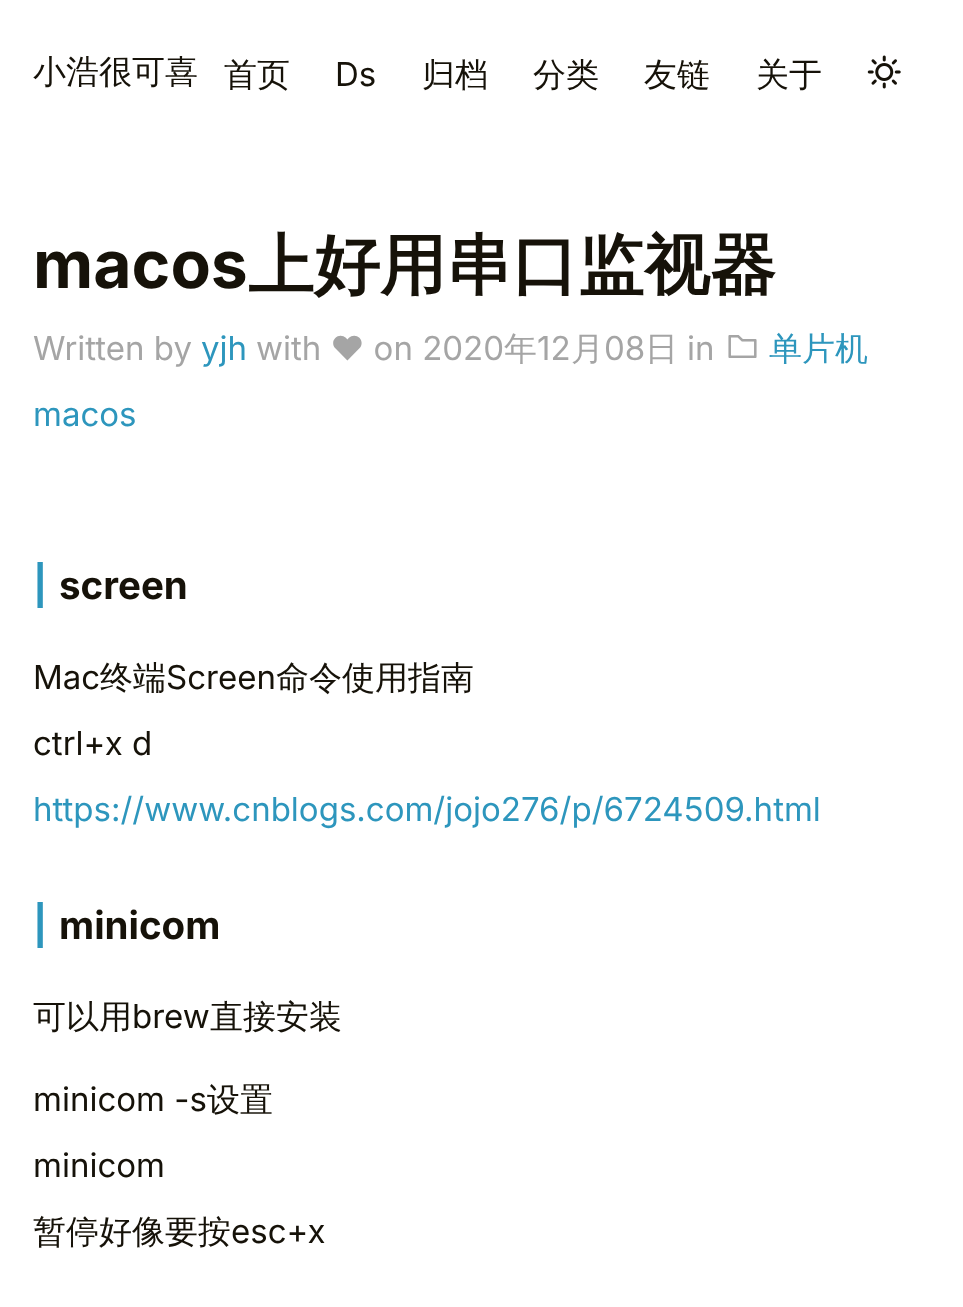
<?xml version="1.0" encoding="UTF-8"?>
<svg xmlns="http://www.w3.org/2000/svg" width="963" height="1307">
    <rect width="100%" height="100%" fill="#FFFFFF"/>
    <text x="33" y="83" font-family="WenQuanYi Zen Hei" font-size="33" font-weight="500" fill="#161209">小浩很可喜</text>
    <text x="224" y="86" font-family="WenQuanYi Zen Hei" font-size="33" font-weight="500" fill="#161209">首页</text>
    <text x="335" y="86" font-family="Inter" font-size="33" fill="#161209">Ds</text>
    <text x="422" y="86" font-family="WenQuanYi Zen Hei" font-size="33" font-weight="500" fill="#161209">归档</text>
    <text x="533" y="86" font-family="WenQuanYi Zen Hei" font-size="33" font-weight="500" fill="#161209">分类</text>
    <text x="644" y="86" font-family="WenQuanYi Zen Hei" font-size="33" font-weight="500" fill="#161209">友链</text>
    <text x="756" y="86" font-family="WenQuanYi Zen Hei" font-size="33" font-weight="500" fill="#161209">关于</text>
    <image x="867" y="55" width="34" height="34" href="img_01.png"/>
    <text x="33" y="288" font-family="Inter" font-size="66" font-weight="700" fill="#161209">macos</text>
    <text x="248" y="288" font-family="WenQuanYi Zen Hei" font-size="66" font-weight="700" fill="#161209">上好用串口监视器</text>
    <text x="33" y="360" font-family="Inter" font-size="33" fill="#A5A5A5">Written by</text>
    <text x="201" y="360" font-family="Inter" font-size="33" fill="#2D96BD">yjh</text>
    <text x="256" y="360" font-family="Inter" font-size="33" fill="#A5A5A5">with ♥ on 2020</text>
    <text x="504" y="360" font-family="WenQuanYi Zen Hei" font-size="33" font-weight="500" fill="#A5A5A5">年</text>
    <text x="537" y="360" font-family="Inter" font-size="33" fill="#A5A5A5">12</text>
    <text x="571" y="360" font-family="WenQuanYi Zen Hei" font-size="33" font-weight="500" fill="#A5A5A5">月</text>
    <text x="604" y="360" font-family="Inter" font-size="33" fill="#A5A5A5">08</text>
    <text x="645" y="360" font-family="WenQuanYi Zen Hei" font-size="33" font-weight="500" fill="#A5A5A5">日</text>
    <text x="687" y="360" font-family="Inter" font-size="33" fill="#A5A5A5">in</text>
    <image x="728" y="335" width="29" height="23" href="img_02.png"/>
    <text x="769" y="360" font-family="WenQuanYi Zen Hei" font-size="33" font-weight="500" fill="#2D96BD">单片机</text>
    <text x="33" y="426" font-family="Inter" font-size="33" fill="#2D96BD">macos</text>
    <text x="33" y="599" font-family="Inter" font-size="38.5" font-weight="700" fill="#2D96BD">|</text>
    <text x="59" y="599" font-family="Inter" font-size="38.5" font-weight="700" fill="#161209">screen</text>
    <text x="33" y="689" font-family="Inter" font-size="33" fill="#161209">Mac</text>
    <text x="100" y="689" font-family="WenQuanYi Zen Hei" font-size="33" font-weight="500" fill="#161209">终端</text>
    <text x="166" y="689" font-family="Inter" font-size="33" fill="#161209">Screen</text>
    <text x="276" y="689" font-family="WenQuanYi Zen Hei" font-size="33" font-weight="500" fill="#161209">命令使用指南</text>
    <text x="33" y="755" font-family="Inter" font-size="33" fill="#161209">ctrl+x d</text>
    <text x="33" y="821" font-family="Inter" font-size="33" fill="#2D96BD">https://www.cnblogs.com/jojo276/p/6724509.html</text>
    <text x="33" y="939" font-family="Inter" font-size="38.5" font-weight="700" fill="#2D96BD">|</text>
    <text x="59" y="939" font-family="Inter" font-size="38.5" font-weight="700" fill="#161209">minicom</text>
    <text x="33" y="1028" font-family="WenQuanYi Zen Hei" font-size="33" font-weight="500" fill="#161209">可以用</text>
    <text x="132" y="1028" font-family="Inter" font-size="33" fill="#161209">brew</text>
    <text x="210" y="1028" font-family="WenQuanYi Zen Hei" font-size="33" font-weight="500" fill="#161209">直接安装</text>
    <text x="33" y="1111" font-family="Inter" font-size="33" fill="#161209">minicom -s</text>
    <text x="207" y="1111" font-family="WenQuanYi Zen Hei" font-size="33" font-weight="500" fill="#161209">设置</text>
    <text x="33" y="1177" font-family="Inter" font-size="33" fill="#161209">minicom</text>
    <text x="33" y="1243" font-family="WenQuanYi Zen Hei" font-size="33" font-weight="500" fill="#161209">暂停好像要按</text>
    <text x="231" y="1243" font-family="Inter" font-size="33" fill="#161209">esc+x</text>
</svg>
